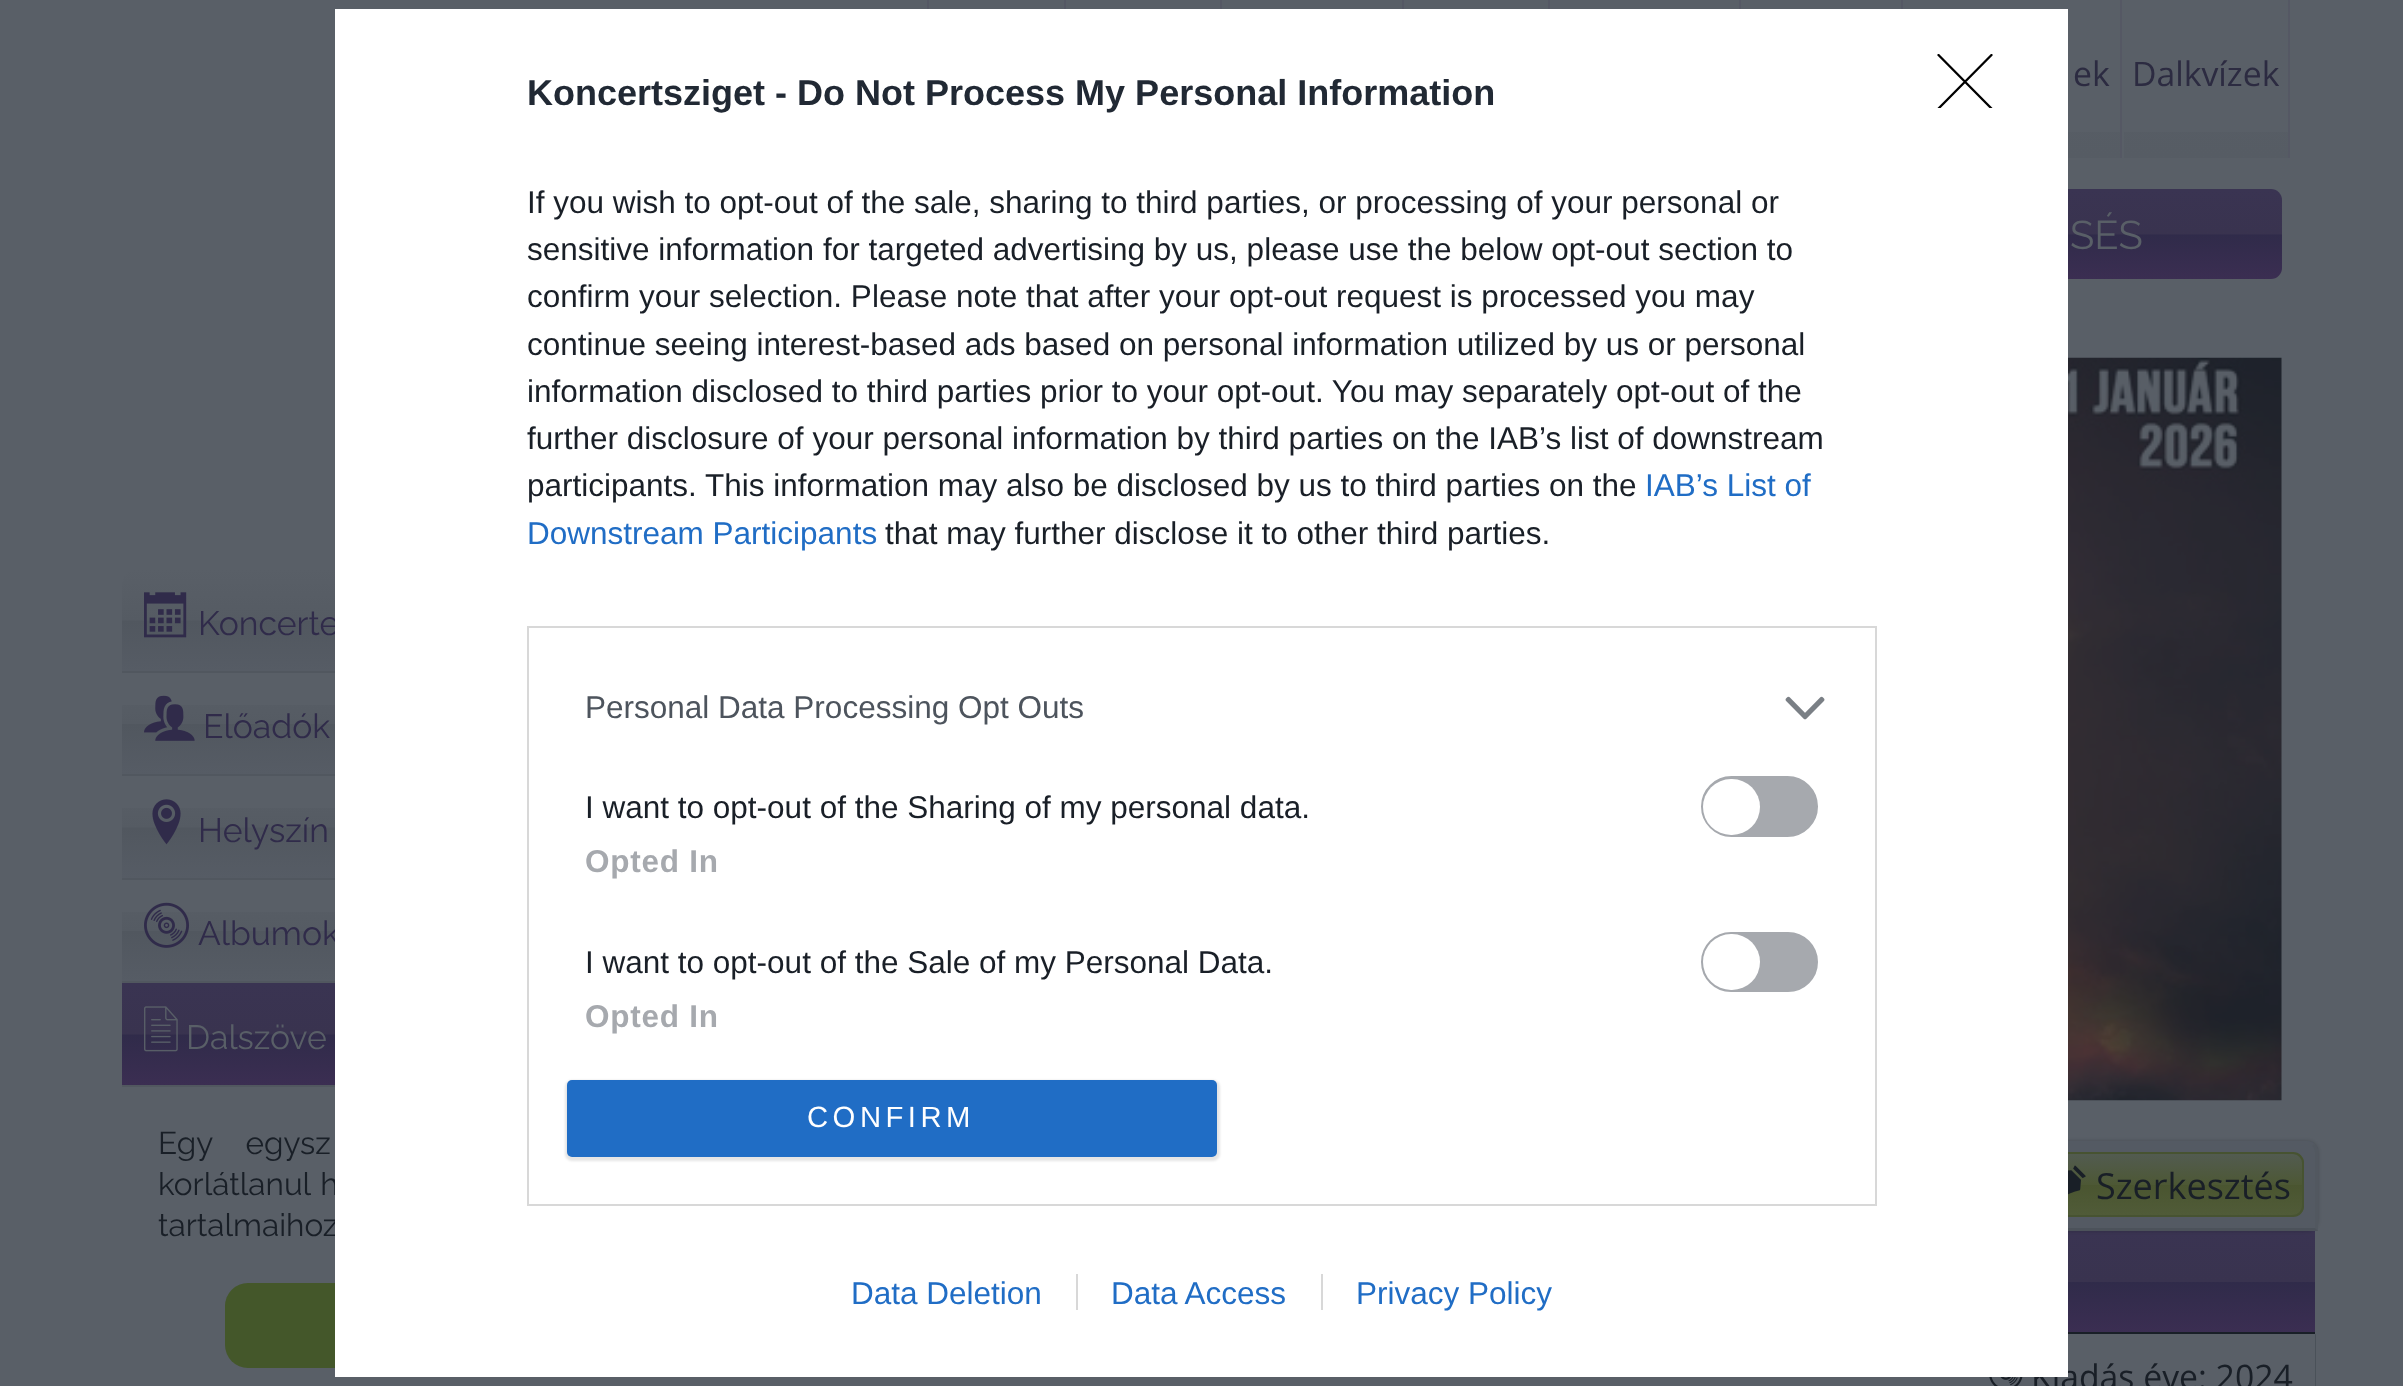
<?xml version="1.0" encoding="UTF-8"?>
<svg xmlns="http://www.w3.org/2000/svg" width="2403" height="1386">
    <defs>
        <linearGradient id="g1" gradientUnits="userSpaceOnUse" x1="2013" y1="0" x2="2013" y2="158"><stop offset="0" stop-color="#595F67"/><stop offset="1" stop-color="#565C64"/></linearGradient>
        <linearGradient id="g2" gradientUnits="userSpaceOnUse" x1="2206" y1="0" x2="2206" y2="158"><stop offset="0" stop-color="#595F67"/><stop offset="1" stop-color="#565C64"/></linearGradient>
        <linearGradient id="g3" gradientUnits="userSpaceOnUse" x1="2057" y1="189" x2="2057" y2="279"><stop offset="0" stop-color="#3A3452"/><stop offset="0.5" stop-color="#39334F"/><stop offset="0.51" stop-color="#302B4A"/><stop offset="1" stop-color="#3B2E52"/></linearGradient>
        <linearGradient id="g4" gradientUnits="userSpaceOnUse" x1="469" y1="569" x2="469" y2="671"><stop offset="0" stop-color="#595F67"/><stop offset="0.5" stop-color="#555B63"/><stop offset="0.51" stop-color="#51575F"/><stop offset="1" stop-color="#565C65"/></linearGradient>
        <linearGradient id="g5" gradientUnits="userSpaceOnUse" x1="469" y1="673" x2="469" y2="774"><stop offset="0" stop-color="#595F67"/><stop offset="0.5" stop-color="#555B63"/><stop offset="0.51" stop-color="#51575F"/><stop offset="1" stop-color="#565C65"/></linearGradient>
        <linearGradient id="g6" gradientUnits="userSpaceOnUse" x1="469" y1="776" x2="469" y2="878"><stop offset="0" stop-color="#595F67"/><stop offset="0.5" stop-color="#555B63"/><stop offset="0.51" stop-color="#51575F"/><stop offset="1" stop-color="#565C65"/></linearGradient>
        <linearGradient id="g7" gradientUnits="userSpaceOnUse" x1="469" y1="880" x2="469" y2="981"><stop offset="0" stop-color="#595F67"/><stop offset="0.5" stop-color="#555B63"/><stop offset="0.51" stop-color="#51575F"/><stop offset="1" stop-color="#565C65"/></linearGradient>
        <linearGradient id="g8" gradientUnits="userSpaceOnUse" x1="469" y1="983" x2="469" y2="1085"><stop offset="0" stop-color="#3A3452"/><stop offset="0.5" stop-color="#39334F"/><stop offset="0.51" stop-color="#302B4A"/><stop offset="1" stop-color="#3B2E52"/></linearGradient>
        <linearGradient id="g9" gradientUnits="userSpaceOnUse" x1="1567" y1="1231" x2="1567" y2="1332"><stop offset="0" stop-color="#3A3452"/><stop offset="0.5" stop-color="#39334F"/><stop offset="0.51" stop-color="#302B4A"/><stop offset="1" stop-color="#3B2E52"/></linearGradient>
        <filter id="blur1" x="-50%" y="-200%" width="200%" height="500%"><feGaussianBlur stdDeviation="2"/></filter>
        <clipPath id="clip1"><rect x="2036" y="1152" width="268" height="65" rx="11"/></clipPath>
        <linearGradient id="g10" gradientUnits="userSpaceOnUse" x1="2170" y1="1154" x2="2170" y2="1215"><stop offset="0" stop-color="#525B50"/><stop offset="0.5" stop-color="#4D5835"/><stop offset="0.51" stop-color="#4A5530"/><stop offset="1" stop-color="#505B38"/></linearGradient>
        <filter id="blur2" x="-50%" y="-200%" width="200%" height="500%"><feGaussianBlur stdDeviation="1"/></filter>
        <clipPath id="clip2"><rect x="1937" y="54" width="57" height="54"/></clipPath>
    </defs>
    <rect width="100%" height="100%" fill="#595F67"/>
    <rect x="927" y="0" width="2" height="9" fill="#555864"/>
    <rect x="1064" y="0" width="2" height="9" fill="#555864"/>
    <rect x="1220" y="0" width="2" height="9" fill="#555864"/>
    <rect x="1402" y="0" width="2" height="9" fill="#555864"/>
    <rect x="1548" y="0" width="2" height="9" fill="#555864"/>
    <rect x="1739" y="0" width="2" height="9" fill="#555864"/>
    <rect x="1901" y="0" width="2" height="9" fill="#555864"/>
    <rect x="1906" y="132" width="214" height="26" fill="url(#g1)"/>
    <text x="2073" y="86" font-family="Open Sans" font-size="33.75" fill="#2C2B41">ek</text>
    <rect x="2120" y="0" width="2" height="158" fill="#555864"/>
    <rect x="2124" y="132" width="164" height="26" fill="url(#g2)"/>
    <text x="2132" y="86" font-family="Open Sans" font-size="33.75" fill="#2C2B41">Dalkvízek</text>
    <rect x="2288" y="0" width="2" height="158" fill="#555864"/>
    <rect x="1832" y="189" width="450" height="90" rx="11" fill="url(#g3)"/>
    <text x="2070" y="249" font-family="Raleway" font-size="40" fill="#595F67">SÉS</text>
    <path d="M 138 569 H 817 V 671 H 122 V 585 C 122 576 129 569 138 569 Z" fill="url(#g4)"/>
    <rect x="122" y="671" width="213" height="2" fill="#51575F"/>
    <image x="144" y="592" width="43" height="46" href="img_01.png"/>
    <text x="198" y="635" font-family="Raleway" font-size="33.75" fill="#302B4A">Koncerte</text>
    <rect x="122" y="705" width="213" height="69" fill="url(#g5)"/>
    <rect x="122" y="774" width="213" height="2" fill="#51575F"/>
    <image x="144" y="695" width="51" height="46" href="img_02.png"/>
    <text x="203" y="738" font-family="Raleway" font-size="33.75" fill="#302B4A">Előadók</text>
    <rect x="122" y="808" width="213" height="70" fill="url(#g6)"/>
    <rect x="122" y="878" width="213" height="2" fill="#51575F"/>
    <image x="152" y="799" width="29" height="46" href="img_03.png"/>
    <text x="198" y="842" font-family="Raleway" font-size="33.75" fill="#302B4A">Helyszín</text>
    <rect x="122" y="912" width="213" height="69" fill="url(#g7)"/>
    <rect x="122" y="981" width="213" height="2" fill="#51575F"/>
    <image x="144" y="902" width="45" height="46" href="img_04.png"/>
    <text x="198" y="945" font-family="Raleway" font-size="33.75" fill="#302B4A">Albumok</text>
    <rect x="122" y="983" width="213" height="102" fill="url(#g8)"/>
    <rect x="122" y="1085" width="213" height="2" fill="#51575F"/>
    <image x="144" y="1006" width="34" height="46" href="img_05.png"/>
    <text x="186" y="1049" font-family="Raleway" font-size="33.75" fill="#595F67">Dalszöve</text>
    <text font-family="Raleway" font-size="31.5" fill="#191F27">
        <tspan x="158" y="1154" word-spacing="25">Egy egysz</tspan>
        <tspan x="158" y="1195" word-spacing="2">korlátlanul h</tspan>
        <tspan x="158" y="1236">tartalmaihoz</tspan>
    </text>
    <rect x="225" y="1283" width="491" height="85" rx="23" fill="#44572A"/>
    <image x="2068" y="357" width="214" height="744" href="img_06.png"/>
    <rect x="2068" y="1231" width="247" height="101" fill="url(#g9)"/>
    <rect x="819" y="1141" width="1499" height="90" rx="11" fill="#191F27" fill-opacity="0.2" filter="url(#blur1)"/>
    <path d="M 830 1141 H 2307 C 2313 1141 2318 1146 2318 1152 V 1231 H 819 V 1152 C 819 1146 824 1141 830 1141 Z" fill="#545A63"/>
    <path d="M 2314 1144 C 2316 1145 2317 1147 2318 1149 V 1231 L 2315 1228 V 1152 C 2315 1150 2314 1147 2312 1146 Z" fill="#525860"/>
    <path d="M 2318 1231 L 2315 1228 H 822 L 819 1231 Z" fill="#4C525A"/>
    <g clip-path="url(#clip1)">
        <rect x="2068" y="1154" width="236" height="61" fill="url(#g10)"/>
    </g>
    <rect x="2037" y="1153" width="266" height="63" rx="10" fill="none" stroke="#475331" stroke-width="2"/>
    <image x="2068" y="1165" width="18" height="30" href="img_07.png"/>
    <text x="2096" y="1199" font-family="Open Sans" font-size="36" fill="#191F27">Szerkesztés</text>
    <rect x="2068" y="1332" width="247" height="2" fill="#191F27"/>
    <image x="2315" y="1334" width="1" height="52" href="img_08.png"/>
    <image x="1989" y="1377" width="34" height="9" href="img_09.png"/>
    <text x="2031" y="1389" font-family="Open Sans" font-size="33.75" fill="#191F27">Kiadás éve: 2024</text>
    <rect x="335" y="9" width="1733" height="1368" fill="#FFFFFF"/>
    <text x="527" y="105" font-family="Liberation Sans" font-size="36" font-weight="700" fill="#212934">Koncertsziget - Do Not Process My Personal Information</text>
    <text font-family="Liberation Sans" font-size="31.5" fill="#191F27">
        <tspan x="527" y="213">If you wish to opt-out of the sale, sharing to third parties, or processing of your personal or</tspan>
        <tspan x="527" y="260">sensitive information for targeted advertising by us, please use the below opt-out section to</tspan>
        <tspan x="527" y="307">confirm your selection. Please note that after your opt-out request is processed you may</tspan>
        <tspan x="527" y="355">continue seeing interest-based ads based on personal information utilized by us or personal</tspan>
        <tspan x="527" y="402">information disclosed to third parties prior to your opt-out. You may separately opt-out of the</tspan>
        <tspan x="527" y="449">further disclosure of your personal information by third parties on the IAB’s list of downstream</tspan>
        <tspan x="527" y="496">participants. This information may also be disclosed by us to third parties on the</tspan>
    </text>
    <text x="1645" y="496" font-family="Liberation Sans" font-size="31.5" fill="#206DC5">IAB’s List of</text>
    <text x="527" y="544" font-family="Liberation Sans" font-size="31.5" fill="#206DC5">Downstream Participants</text>
    <text x="885" y="544" font-family="Liberation Sans" font-size="31.5" fill="#191F27">that may further disclose it to other third parties.</text>
    <rect x="528" y="627" width="1348" height="578" fill="none" stroke="#D8D8D8" stroke-width="2"/>
    <text x="585" y="718" font-family="Liberation Sans" font-size="31.5" fill="#4D545D">Personal Data Processing Opt Outs</text>
    <image x="1785" y="696" width="40" height="24" href="img_10.png"/>
    <text x="585" y="818" font-family="Liberation Sans" font-size="31.5" fill="#191F27">I want to opt-out of the Sharing of my personal data.</text>
    <rect x="1702" y="777" width="115" height="59" rx="29.5" fill="#A6A9AE" stroke="#A6A9AE" stroke-width="2"/>
    <rect x="1703" y="779" width="57" height="56" rx="28" fill="#FFFFFF"/>
    <text x="585" y="872" font-family="Liberation Sans" font-size="31.5" font-weight="700" letter-spacing="0.75" fill="#A6A9AE">Opted In</text>
    <text x="585" y="973" font-family="Liberation Sans" font-size="31.5" fill="#191F27">I want to opt-out of the Sale of my Personal Data.</text>
    <rect x="1702" y="933" width="115" height="58" rx="29" fill="#A6A9AE" stroke="#A6A9AE" stroke-width="2"/>
    <rect x="1703" y="934" width="57" height="56" rx="28" fill="#FFFFFF"/>
    <text x="585" y="1027" font-family="Liberation Sans" font-size="31.5" font-weight="700" letter-spacing="0.75" fill="#A6A9AE">Opted In</text>
    <rect x="565" y="1080" width="655" height="81" rx="7" fill="#000000" fill-opacity="0.1" filter="url(#blur2)"/>
    <rect x="567" y="1080" width="650" height="77" rx="5" fill="#206DC5"/>
    <text x="807" y="1127" font-family="Liberation Sans" font-size="29.25" letter-spacing="4.5" fill="#FFFFFF">CONFIRM</text>
    <g clip-path="url(#clip2)">
        <path d="M 1938.5 55 L 1991.5 108.5 M 1991.5 55 L 1938.5 108.5" fill="none" stroke="#000000" stroke-width="2.3" stroke-linecap="round" stroke-linejoin="round"/>
    </g>
    <text x="851" y="1304" font-family="Liberation Sans" font-size="31.5" fill="#206DC5">Data Deletion</text>
    <text x="1111" y="1304" font-family="Liberation Sans" font-size="31.5" fill="#206DC5">Data Access</text>
    <rect x="1076" y="1274" width="2" height="36" fill="#D8D8D8"/>
    <text x="1356" y="1304" font-family="Liberation Sans" font-size="31.5" fill="#206DC5">Privacy Policy</text>
    <rect x="1321" y="1274" width="2" height="36" fill="#D8D8D8"/>
</svg>
